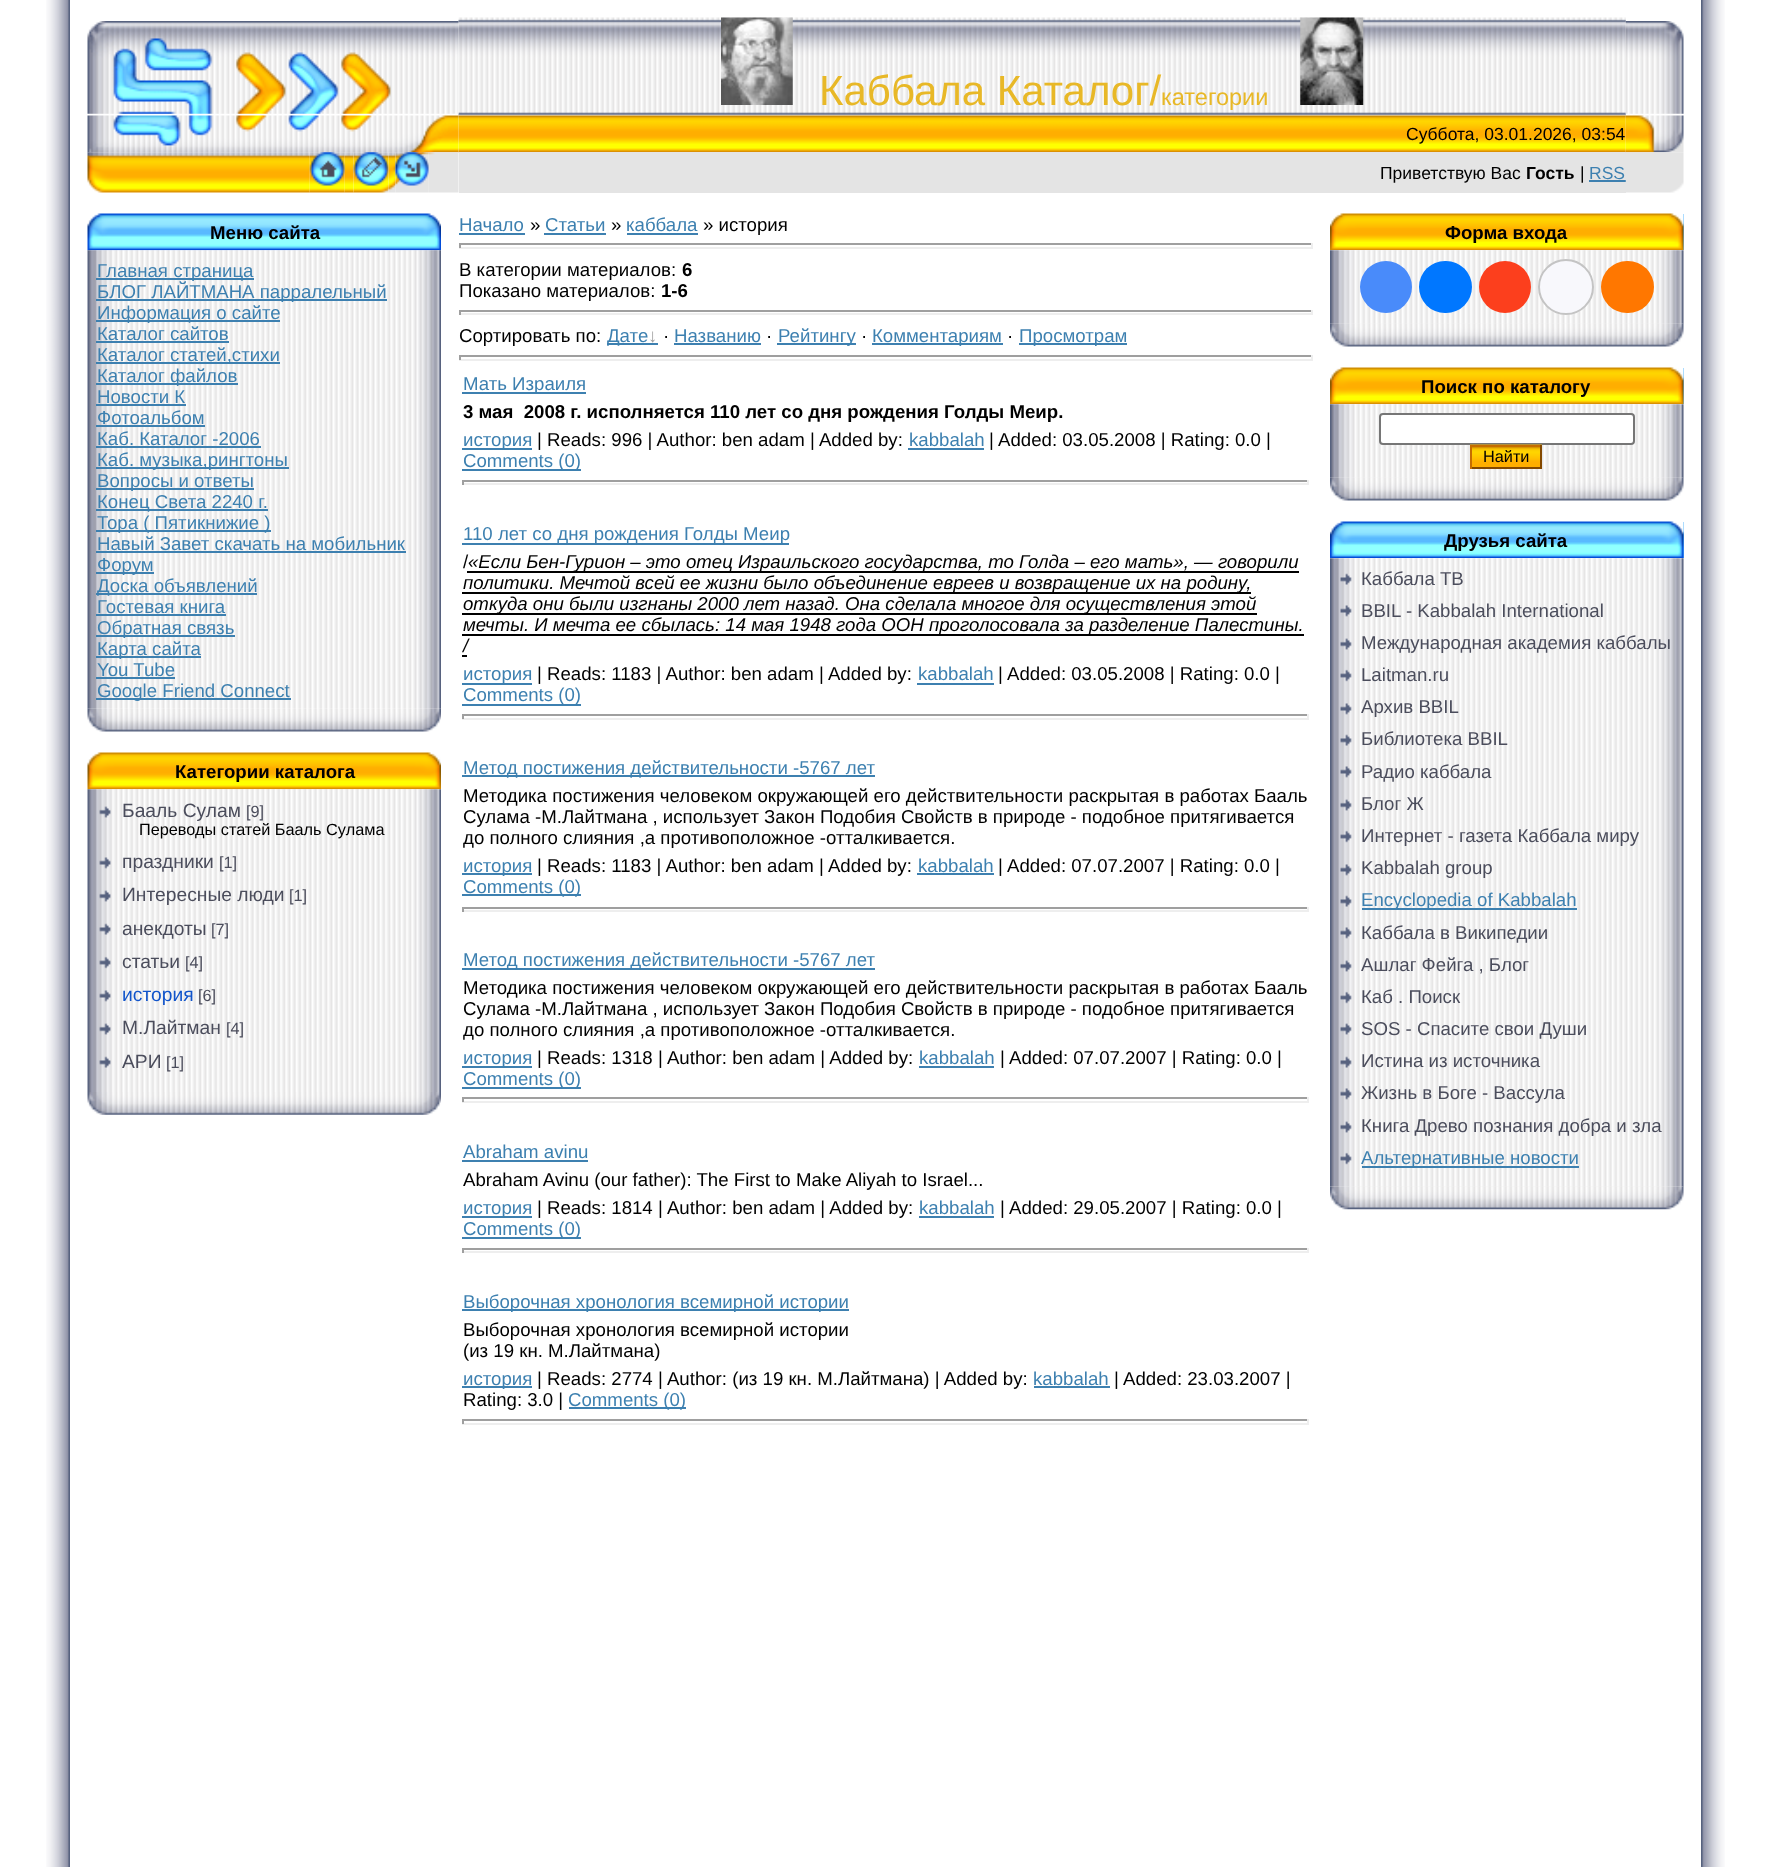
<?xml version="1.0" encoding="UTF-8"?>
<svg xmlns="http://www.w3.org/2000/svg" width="1771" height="1867">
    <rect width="100%" height="100%" fill="#FFFFFF"/>
    <image x="46" y="0" width="24" height="1867" href="img_01.png"/>
    <image x="458" y="17" width="1168" height="99" href="img_03.png"/>
    <image x="87" y="21" width="372" height="93" href="img_02.png"/>
    <image x="721" y="17" width="72" height="88" href="img_04.png"/>
    <text x="819" y="105" font-family="Liberation Sans" font-size="42" fill="#E8B827">Каббала Каталог/</text>
    <text x="1161" y="105" font-family="Liberation Sans" font-size="23.5" fill="#E8B827">категории</text>
    <image x="1300" y="17" width="64" height="88" href="img_05.png"/>
    <image x="1625" y="21" width="59" height="93" href="img_06.png"/>
    <image x="458" y="115" width="1168" height="38" href="img_08.png"/>
    <image x="87" y="115" width="372" height="38" href="img_07.png"/>
    <text x="1406" y="140" font-family="Liberation Sans" font-size="17.5" fill="#000000">Суббота, 03.01.2026, 03:54</text>
    <rect x="459" y="152" width="1167" height="41" fill="#E4E4E4"/>
    <image x="1625" y="115" width="59" height="38" href="img_09.png"/>
    <image x="87" y="152" width="223" height="41" href="img_10.png"/>
    <image x="309" y="152" width="36" height="41" href="img_11.png"/>
    <image x="344" y="152" width="10" height="41" href="img_12.png"/>
    <image x="353" y="152" width="36" height="41" href="img_13.png"/>
    <image x="388" y="152" width="8" height="41" href="img_14.png"/>
    <image x="395" y="152" width="34" height="41" href="img_15.png"/>
    <image x="428" y="152" width="31" height="41" href="img_16.png"/>
    <text x="1380" y="179" font-family="Liberation Sans" font-size="17.5" fill="#000000">Приветствую Вас</text>
    <text x="1526" y="179" font-family="Liberation Sans" font-size="17.5" font-weight="700" fill="#000000">Гость</text>
    <text x="1580" y="179" font-family="Liberation Sans" font-size="17.5" fill="#000000">|</text>
    <text x="1589" y="179" font-family="Liberation Sans" font-size="17.5" fill="#3D80B0">RSS</text>
    <rect x="1589" y="180" width="37" height="2" fill="#3D80B0"/>
    <image x="1625" y="152" width="59" height="41" href="img_17.png"/>
    <image x="87" y="213" width="354" height="38" href="img_18.png"/>
    <text x="210" y="239" font-family="Liberation Sans" font-size="18.65" font-weight="700" fill="#000000">Меню сайта</text>
    <image x="87" y="250" width="354" height="459" href="img_19.png"/>
    <rect x="96" y="278" width="158" height="2" fill="#3D80B0"/>
    <text x="97" y="277" font-family="Liberation Sans" font-size="18.65" fill="#3D80B0">Главная страница</text>
    <rect x="96" y="299" width="291" height="2" fill="#3D80B0"/>
    <text x="97" y="298" font-family="Liberation Sans" font-size="18.65" fill="#3D80B0">БЛОГ ЛАЙТМАНА парралельный</text>
    <rect x="96" y="320" width="184" height="2" fill="#3D80B0"/>
    <text font-family="Liberation Sans" font-size="18.65" fill="#3D80B0">
        <tspan x="97" y="319">Информация о сайте</tspan>
        <tspan x="97" y="340">Каталог сайтов</tspan>
    </text>
    <rect x="96" y="341" width="133" height="2" fill="#3D80B0"/>
    <rect x="96" y="362" width="184" height="2" fill="#3D80B0"/>
    <text x="97" y="361" font-family="Liberation Sans" font-size="18.65" fill="#3D80B0">Каталог статей,стихи</text>
    <rect x="96" y="383" width="142" height="2" fill="#3D80B0"/>
    <text font-family="Liberation Sans" font-size="18.65" fill="#3D80B0">
        <tspan x="97" y="382">Каталог файлов</tspan>
        <tspan x="97" y="403">Новости К</tspan>
    </text>
    <rect x="96" y="404" width="90" height="2" fill="#3D80B0"/>
    <text x="97" y="424" font-family="Liberation Sans" font-size="18.65" fill="#3D80B0">Фотоальбом</text>
    <rect x="96" y="425" width="109" height="2" fill="#3D80B0"/>
    <text x="97" y="445" font-family="Liberation Sans" font-size="18.65" fill="#3D80B0">Каб. Каталог -2006</text>
    <rect x="96" y="446" width="165" height="2" fill="#3D80B0"/>
    <rect x="96" y="467" width="193" height="2" fill="#3D80B0"/>
    <text x="97" y="466" font-family="Liberation Sans" font-size="18.65" fill="#3D80B0">Каб. музыка,рингтоны</text>
    <rect x="96" y="488" width="158" height="2" fill="#3D80B0"/>
    <text x="97" y="487" font-family="Liberation Sans" font-size="18.65" fill="#3D80B0">Вопросы и ответы</text>
    <rect x="96" y="509" width="172" height="2" fill="#3D80B0"/>
    <text x="97" y="508" font-family="Liberation Sans" font-size="18.65" fill="#3D80B0">Конец Света 2240 г.</text>
    <rect x="96" y="530" width="175" height="2" fill="#3D80B0"/>
    <text font-family="Liberation Sans" font-size="18.65" fill="#3D80B0">
        <tspan x="97" y="529">Тора ( Пятикнижие )</tspan>
        <tspan x="97" y="550">Навый Завет скачать на мобильник</tspan>
    </text>
    <rect x="96" y="551" width="310" height="2" fill="#3D80B0"/>
    <rect x="96" y="572" width="58" height="2" fill="#3D80B0"/>
    <text x="97" y="571" font-family="Liberation Sans" font-size="18.65" fill="#3D80B0">Форум</text>
    <rect x="96" y="593" width="161" height="2" fill="#3D80B0"/>
    <text font-family="Liberation Sans" font-size="18.65" fill="#3D80B0">
        <tspan x="97" y="592">Доска объявлений</tspan>
        <tspan x="97" y="613">Гостевая книга</tspan>
    </text>
    <rect x="96" y="614" width="130" height="2" fill="#3D80B0"/>
    <rect x="96" y="635" width="139" height="2" fill="#3D80B0"/>
    <text x="97" y="634" font-family="Liberation Sans" font-size="18.65" fill="#3D80B0">Обратная связь</text>
    <rect x="96" y="656" width="105" height="2" fill="#3D80B0"/>
    <text font-family="Liberation Sans" font-size="18.65" fill="#3D80B0">
        <tspan x="97" y="655">Карта сайта</tspan>
        <tspan x="97" y="676">You Tube</tspan>
    </text>
    <rect x="96" y="677" width="79" height="2" fill="#3D80B0"/>
    <rect x="96" y="698" width="195" height="2" fill="#3D80B0"/>
    <text x="97" y="697" font-family="Liberation Sans" font-size="18.65" fill="#3D80B0">Google Friend Connect</text>
    <image x="87" y="708" width="354" height="24" href="img_20.png"/>
    <image x="87" y="752" width="354" height="38" href="img_21.png"/>
    <text x="175" y="778" font-family="Liberation Sans" font-size="18.65" font-weight="700" fill="#000000">Категории каталога</text>
    <image x="87" y="789" width="354" height="303" href="img_22.png"/>
    <image x="99" y="806" width="12" height="12" href="img_23.png"/>
    <text x="122" y="817" font-family="Liberation Sans" font-size="19.25" fill="#4B4D5C">Бааль Сулам</text>
    <text x="246" y="817" font-family="Liberation Sans" font-size="16.3" fill="#4B4D5C">[9]</text>
    <text x="139" y="835" font-family="Liberation Sans" font-size="16.3" fill="#000000">Переводы статей Бааль Сулама</text>
    <image x="99" y="857" width="12" height="12" href="img_24.png"/>
    <text x="122" y="868" font-family="Liberation Sans" font-size="19.25" fill="#4B4D5C">праздники</text>
    <text x="219" y="868" font-family="Liberation Sans" font-size="16.3" fill="#4B4D5C">[1]</text>
    <image x="99" y="890" width="12" height="12" href="img_23.png"/>
    <text x="122" y="901" font-family="Liberation Sans" font-size="19.25" fill="#4B4D5C">Интересные люди</text>
    <text x="289" y="901" font-family="Liberation Sans" font-size="16.3" fill="#4B4D5C">[1]</text>
    <image x="99" y="923" width="12" height="12" href="img_25.png"/>
    <text x="122" y="935" font-family="Liberation Sans" font-size="19.25" fill="#4B4D5C">анекдоты</text>
    <text x="211" y="935" font-family="Liberation Sans" font-size="16.3" fill="#4B4D5C">[7]</text>
    <image x="99" y="956" width="12" height="13" href="img_26.png"/>
    <text x="122" y="968" font-family="Liberation Sans" font-size="19.25" fill="#4B4D5C">статьи</text>
    <text x="185" y="968" font-family="Liberation Sans" font-size="16.3" fill="#4B4D5C">[4]</text>
    <image x="99" y="990" width="12" height="12" href="img_24.png"/>
    <text x="122" y="1001" font-family="Liberation Sans" font-size="19.25" fill="#1154CA">история</text>
    <text x="198" y="1001" font-family="Liberation Sans" font-size="16.3" fill="#4B4D5C">[6]</text>
    <image x="99" y="1023" width="12" height="12" href="img_23.png"/>
    <text x="122" y="1034" font-family="Liberation Sans" font-size="19.25" fill="#4B4D5C">М.Лайтман</text>
    <text x="226" y="1034" font-family="Liberation Sans" font-size="16.3" fill="#4B4D5C">[4]</text>
    <image x="99" y="1056" width="12" height="12" href="img_25.png"/>
    <text x="122" y="1068" font-family="Liberation Sans" font-size="19.25" fill="#4B4D5C">АРИ</text>
    <text x="166" y="1068" font-family="Liberation Sans" font-size="16.3" fill="#4B4D5C">[1]</text>
    <image x="87" y="1092" width="354" height="23" href="img_27.png"/>
    <text x="459" y="231" font-family="Liberation Sans" font-size="18.65" fill="#3D80B0">Начало</text>
    <rect x="459" y="233" width="66" height="2" fill="#3D80B0"/>
    <text x="530" y="231" font-family="Liberation Sans" font-size="18.65" fill="#000000">»</text>
    <text x="545" y="231" font-family="Liberation Sans" font-size="18.65" fill="#3D80B0">Статьи</text>
    <rect x="544" y="233" width="62" height="2" fill="#3D80B0"/>
    <text x="611" y="231" font-family="Liberation Sans" font-size="18.65" fill="#000000">»</text>
    <text x="626" y="231" font-family="Liberation Sans" font-size="18.65" fill="#3D80B0">каббала</text>
    <rect x="627" y="233" width="71" height="2" fill="#3D80B0"/>
    <text x="703" y="231" font-family="Liberation Sans" font-size="18.65" fill="#000000">» история</text>
    <rect x="459" y="243" width="854" height="2" fill="#9F9F9F"/>
    <rect x="1311" y="243" width="2" height="5" fill="#EEEEEE"/>
    <rect x="459" y="247" width="854" height="2" fill="#EEEEEE"/>
    <rect x="459" y="243" width="2" height="5" fill="#9F9F9F"/>
    <text x="459" y="276" font-family="Liberation Sans" font-size="18.65" fill="#000000">В категории материалов:</text>
    <text x="682" y="276" font-family="Liberation Sans" font-size="18.65" font-weight="700" fill="#000000">6</text>
    <text x="459" y="297" font-family="Liberation Sans" font-size="18.65" fill="#000000">Показано материалов:</text>
    <text x="661" y="297" font-family="Liberation Sans" font-size="18.65" font-weight="700" fill="#000000">1-6</text>
    <rect x="459" y="310" width="854" height="2" fill="#9F9F9F"/>
    <rect x="1311" y="310" width="2" height="5" fill="#EEEEEE"/>
    <rect x="459" y="313" width="854" height="2" fill="#EEEEEE"/>
    <rect x="459" y="310" width="2" height="5" fill="#9F9F9F"/>
    <text x="459" y="342" font-family="Liberation Sans" font-size="18.65" fill="#000000">Сортировать по:</text>
    <rect x="607" y="343" width="51" height="2" fill="#3D80B0"/>
    <text x="607" y="342" font-family="Liberation Sans" font-size="18.65" fill="#3D80B0">Дате</text>
    <text x="648" y="342" font-family="Liberation Sans" font-size="18.65" fill="#A0A0A0">↓</text>
    <text x="663" y="342" font-family="Liberation Sans" font-size="18.65" fill="#000000">·</text>
    <text x="674" y="342" font-family="Liberation Sans" font-size="18.65" fill="#3D80B0">Названию</text>
    <rect x="674" y="343" width="87" height="2" fill="#3D80B0"/>
    <text x="766" y="342" font-family="Liberation Sans" font-size="18.65" fill="#000000">·</text>
    <rect x="777" y="343" width="79" height="2" fill="#3D80B0"/>
    <text x="778" y="342" font-family="Liberation Sans" font-size="18.65" fill="#3D80B0">Рейтингу</text>
    <text x="861" y="342" font-family="Liberation Sans" font-size="18.65" fill="#000000">·</text>
    <rect x="872" y="343" width="131" height="2" fill="#3D80B0"/>
    <text x="872" y="342" font-family="Liberation Sans" font-size="18.65" fill="#3D80B0">Комментариям</text>
    <text x="1007" y="342" font-family="Liberation Sans" font-size="18.65" fill="#000000">·</text>
    <rect x="1019" y="343" width="108" height="2" fill="#3D80B0"/>
    <text x="1019" y="342" font-family="Liberation Sans" font-size="18.65" fill="#3D80B0">Просмотрам</text>
    <rect x="459" y="355" width="854" height="2" fill="#9F9F9F"/>
    <rect x="1311" y="355" width="2" height="5" fill="#EEEEEE"/>
    <rect x="459" y="359" width="854" height="2" fill="#EEEEEE"/>
    <rect x="459" y="355" width="2" height="5" fill="#9F9F9F"/>
    <rect x="462" y="392" width="124" height="2" fill="#3D80B0"/>
    <text x="463" y="390" font-family="Liberation Sans" font-size="18.65" fill="#3D80B0">Мать Израиля</text>
    <text x="463" y="418" font-family="Liberation Sans" font-size="18.65" font-weight="700" fill="#000000" xml:space="preserve">3 мая  2008 г. исполняется 110 лет со дня рождения Голды Меир.</text>
    <rect x="462" y="448" width="70" height="2" fill="#3D80B0"/>
    <text x="463" y="446" font-family="Liberation Sans" font-size="18.65" fill="#3D80B0">история</text>
    <text x="537" y="446" font-family="Liberation Sans" font-size="18.65" fill="#000000">| Reads: 996 | Author: ben adam | Added by:</text>
    <text x="909" y="446" font-family="Liberation Sans" font-size="18.65" fill="#3D80B0">kabbalah</text>
    <rect x="908" y="448" width="76" height="2" fill="#3D80B0"/>
    <text x="989" y="446" font-family="Liberation Sans" font-size="18.65" fill="#000000">| Added: 03.05.2008 | Rating: 0.0 |</text>
    <rect x="462" y="469" width="119" height="2" fill="#3D80B0"/>
    <text x="463" y="467" font-family="Liberation Sans" font-size="18.65" fill="#3D80B0">Comments (0)</text>
    <rect x="462" y="480" width="847" height="2" fill="#9F9F9F"/>
    <rect x="1307" y="480" width="2" height="5" fill="#EEEEEE"/>
    <rect x="462" y="483" width="847" height="2" fill="#EEEEEE"/>
    <rect x="462" y="480" width="2" height="5" fill="#9F9F9F"/>
    <rect x="462" y="543" width="327" height="2" fill="#3D80B0"/>
    <text x="463" y="540" font-family="Liberation Sans" font-size="18.65" fill="#3D80B0">110 лет со дня рождения Голды Меир</text>
    <text x="463" y="568" font-family="Liberation Sans" font-size="18.65" fill="#000000">/</text>
    <rect x="467" y="571" width="832" height="2" fill="#000000"/>
    <text x="468" y="568" font-family="Liberation Sans" font-size="18.65" font-style="italic" fill="#000000">«Если Бен-Гурион – это отец Израильского государства, то Голда – его мать», — говорили</text>
    <rect x="462" y="592" width="789" height="2" fill="#000000"/>
    <text x="463" y="589" font-family="Liberation Sans" font-size="18.65" font-style="italic" fill="#000000">политики. Мечтой всей ее жизни было объединение евреев и возвращение их на родину,</text>
    <rect x="462" y="613" width="795" height="2" fill="#000000"/>
    <text x="463" y="610" font-family="Liberation Sans" font-size="18.65" font-style="italic" fill="#000000">откуда они были изгнаны 2000 лет назад. Она сделала многое для осуществления этой</text>
    <rect x="462" y="634" width="842" height="2" fill="#000000"/>
    <text font-family="Liberation Sans" font-size="18.65" font-style="italic" fill="#000000">
        <tspan x="463" y="631">мечты. И мечта ее сбылась: 14 мая 1948 года ООН проголосовала за разделение Палестины.</tspan>
        <tspan x="463" y="652">/</tspan>
    </text>
    <rect x="462" y="655" width="5" height="2" fill="#000000"/>
    <rect x="462" y="683" width="70" height="2" fill="#3D80B0"/>
    <text x="463" y="680" font-family="Liberation Sans" font-size="18.65" fill="#3D80B0">история</text>
    <text x="537" y="680" font-family="Liberation Sans" font-size="18.65" fill="#000000">| Reads: 1183 | Author: ben adam | Added by:</text>
    <text x="918" y="680" font-family="Liberation Sans" font-size="18.65" fill="#3D80B0">kabbalah</text>
    <rect x="917" y="683" width="77" height="2" fill="#3D80B0"/>
    <text x="998" y="680" font-family="Liberation Sans" font-size="18.65" fill="#000000">| Added: 03.05.2008 | Rating: 0.0 |</text>
    <rect x="462" y="704" width="119" height="2" fill="#3D80B0"/>
    <text x="463" y="701" font-family="Liberation Sans" font-size="18.65" fill="#3D80B0">Comments (0)</text>
    <rect x="462" y="714" width="847" height="2" fill="#9F9F9F"/>
    <rect x="1307" y="714" width="2" height="5" fill="#EEEEEE"/>
    <rect x="462" y="718" width="847" height="2" fill="#EEEEEE"/>
    <rect x="462" y="714" width="2" height="5" fill="#9F9F9F"/>
    <rect x="462" y="775" width="413" height="2" fill="#3D80B0"/>
    <text x="463" y="774" font-family="Liberation Sans" font-size="18.65" fill="#3D80B0">Метод постижения действительности -5767 лет</text>
    <text font-family="Liberation Sans" font-size="18.65" fill="#000000">
        <tspan x="463" y="802">Методика постижения человеком окружающей его действительности раскрытая в работах Бааль</tspan>
        <tspan x="463" y="823">Сулама -М.Лайтмана , использует Закон Подобия Свойств в природе - подобное притягивается</tspan>
        <tspan x="463" y="844">до полного слияния ,а противоположное -отталкивается.</tspan>
    </text>
    <rect x="462" y="873" width="70" height="2" fill="#3D80B0"/>
    <text x="463" y="872" font-family="Liberation Sans" font-size="18.65" fill="#3D80B0">история</text>
    <text x="537" y="872" font-family="Liberation Sans" font-size="18.65" fill="#000000">| Reads: 1183 | Author: ben adam | Added by:</text>
    <text x="918" y="872" font-family="Liberation Sans" font-size="18.65" fill="#3D80B0">kabbalah</text>
    <rect x="917" y="873" width="77" height="2" fill="#3D80B0"/>
    <text x="998" y="872" font-family="Liberation Sans" font-size="18.65" fill="#000000">| Added: 07.07.2007 | Rating: 0.0 |</text>
    <rect x="462" y="894" width="119" height="2" fill="#3D80B0"/>
    <text x="463" y="893" font-family="Liberation Sans" font-size="18.65" fill="#3D80B0">Comments (0)</text>
    <rect x="462" y="907" width="847" height="2" fill="#9F9F9F"/>
    <rect x="1307" y="907" width="2" height="5" fill="#EEEEEE"/>
    <rect x="462" y="910" width="847" height="2" fill="#EEEEEE"/>
    <rect x="462" y="907" width="2" height="5" fill="#9F9F9F"/>
    <rect x="462" y="968" width="413" height="2" fill="#3D80B0"/>
    <text x="463" y="966" font-family="Liberation Sans" font-size="18.65" fill="#3D80B0">Метод постижения действительности -5767 лет</text>
    <text font-family="Liberation Sans" font-size="18.65" fill="#000000">
        <tspan x="463" y="994">Методика постижения человеком окружающей его действительности раскрытая в работах Бааль</tspan>
        <tspan x="463" y="1015">Сулама -М.Лайтмана , использует Закон Подобия Свойств в природе - подобное притягивается</tspan>
        <tspan x="463" y="1036">до полного слияния ,а противоположное -отталкивается.</tspan>
    </text>
    <rect x="462" y="1066" width="70" height="2" fill="#3D80B0"/>
    <text x="463" y="1064" font-family="Liberation Sans" font-size="18.65" fill="#3D80B0">история</text>
    <text x="537" y="1064" font-family="Liberation Sans" font-size="18.65" fill="#000000">| Reads: 1318 | Author: ben adam | Added by:</text>
    <text x="919" y="1064" font-family="Liberation Sans" font-size="18.65" fill="#3D80B0">kabbalah</text>
    <rect x="919" y="1066" width="75" height="2" fill="#3D80B0"/>
    <text x="1000" y="1064" font-family="Liberation Sans" font-size="18.65" fill="#000000">| Added: 07.07.2007 | Rating: 0.0 |</text>
    <rect x="462" y="1087" width="119" height="2" fill="#3D80B0"/>
    <text x="463" y="1085" font-family="Liberation Sans" font-size="18.65" fill="#3D80B0">Comments (0)</text>
    <rect x="462" y="1097" width="847" height="2" fill="#9F9F9F"/>
    <rect x="1307" y="1097" width="2" height="5" fill="#EEEEEE"/>
    <rect x="462" y="1101" width="847" height="2" fill="#EEEEEE"/>
    <rect x="462" y="1097" width="2" height="5" fill="#9F9F9F"/>
    <text x="463" y="1158" font-family="Liberation Sans" font-size="18.65" fill="#3D80B0">Abraham avinu</text>
    <rect x="462" y="1160" width="126" height="2" fill="#3D80B0"/>
    <text x="463" y="1186" font-family="Liberation Sans" font-size="18.65" fill="#000000">Abraham Avinu (our father): The First to Make Aliyah to Israel...</text>
    <rect x="462" y="1216" width="70" height="2" fill="#3D80B0"/>
    <text x="463" y="1214" font-family="Liberation Sans" font-size="18.65" fill="#3D80B0">история</text>
    <text x="537" y="1214" font-family="Liberation Sans" font-size="18.65" fill="#000000">| Reads: 1814 | Author: ben adam | Added by:</text>
    <text x="919" y="1214" font-family="Liberation Sans" font-size="18.65" fill="#3D80B0">kabbalah</text>
    <rect x="919" y="1216" width="75" height="2" fill="#3D80B0"/>
    <text x="1000" y="1214" font-family="Liberation Sans" font-size="18.65" fill="#000000">| Added: 29.05.2007 | Rating: 0.0 |</text>
    <rect x="462" y="1237" width="119" height="2" fill="#3D80B0"/>
    <text x="463" y="1235" font-family="Liberation Sans" font-size="18.65" fill="#3D80B0">Comments (0)</text>
    <rect x="462" y="1248" width="847" height="2" fill="#9F9F9F"/>
    <rect x="1307" y="1248" width="2" height="5" fill="#EEEEEE"/>
    <rect x="462" y="1251" width="847" height="2" fill="#EEEEEE"/>
    <rect x="462" y="1248" width="2" height="5" fill="#9F9F9F"/>
    <rect x="462" y="1309" width="387" height="2" fill="#3D80B0"/>
    <text x="463" y="1308" font-family="Liberation Sans" font-size="18.65" fill="#3D80B0">Выборочная хронология всемирной истории</text>
    <text font-family="Liberation Sans" font-size="18.65" fill="#000000">
        <tspan x="463" y="1336">Выборочная хронология всемирной истории</tspan>
        <tspan x="463" y="1357">(из 19 кн. М.Лайтмана)</tspan>
    </text>
    <rect x="462" y="1386" width="70" height="2" fill="#3D80B0"/>
    <text x="463" y="1385" font-family="Liberation Sans" font-size="18.65" fill="#3D80B0">история</text>
    <text x="537" y="1385" font-family="Liberation Sans" font-size="18.65" fill="#000000">| Reads: 2774 | Author: (из 19 кн. М.Лайтмана) | Added by:</text>
    <text x="1033" y="1385" font-family="Liberation Sans" font-size="18.65" fill="#3D80B0">kabbalah</text>
    <rect x="1034" y="1386" width="76" height="2" fill="#3D80B0"/>
    <text x="1114" y="1385" font-family="Liberation Sans" font-size="18.65" fill="#000000">| Added: 23.03.2007 |</text>
    <text x="463" y="1406" font-family="Liberation Sans" font-size="18.65" fill="#000000">Rating: 3.0 |</text>
    <rect x="569" y="1407" width="117" height="2" fill="#3D80B0"/>
    <text x="568" y="1406" font-family="Liberation Sans" font-size="18.65" fill="#3D80B0">Comments (0)</text>
    <rect x="462" y="1419" width="847" height="2" fill="#9F9F9F"/>
    <rect x="1307" y="1419" width="2" height="5" fill="#EEEEEE"/>
    <rect x="462" y="1423" width="847" height="2" fill="#EEEEEE"/>
    <rect x="462" y="1419" width="2" height="5" fill="#9F9F9F"/>
    <rect x="1683" y="214" width="1" height="36" fill="#59B9FF"/>
    <image x="1330" y="213" width="354" height="37" href="img_28.png"/>
    <text x="1445" y="239" font-family="Liberation Sans" font-size="18.65" font-weight="700" fill="#000000">Форма входа</text>
    <rect x="1330" y="250" width="354" height="74" fill="#F1F1F1"/>
    <image x="1330" y="250" width="354" height="74" href="img_29.png"/>
    <circle cx="1386" cy="287" r="26" fill="#498BFA"/>
    <rect x="1419" y="261" width="53" height="52" rx="26" fill="#0077FF"/>
    <circle cx="1505" cy="287" r="26" fill="#FC3F1D"/>
    <circle cx="1566" cy="287" r="27" fill="#F8F8FC" stroke="#C4C4C4" stroke-width="2"/>
    <rect x="1601" y="261" width="53" height="52" rx="26" fill="#FF7700"/>
    <image x="1330" y="323" width="354" height="24" href="img_30.png"/>
    <rect x="1683" y="368" width="1" height="36" fill="#59B9FF"/>
    <image x="1330" y="367" width="354" height="37" href="img_31.png"/>
    <text x="1421" y="393" font-family="Liberation Sans" font-size="18.65" font-weight="700" fill="#000000">Поиск по каталогу</text>
    <rect x="1330" y="404" width="354" height="74" fill="#F1F1F1"/>
    <image x="1330" y="404" width="354" height="74" href="img_32.png"/>
    <rect x="1380" y="414" width="254" height="30" rx="3" fill="#FFFFFF" stroke="#767676" stroke-width="2"/>
    <image x="1470" y="444" width="72" height="23" href="img_33.png"/>
    <rect x="1470" y="445" width="72" height="2" fill="#C66D00"/>
    <rect x="1540" y="445" width="2" height="24" fill="#844900"/>
    <rect x="1470" y="467" width="72" height="2" fill="#844900"/>
    <rect x="1470" y="445" width="2" height="24" fill="#C66D00"/>
    <text x="1483" y="462" font-family="Liberation Sans" font-size="16.3" fill="#000000">Найти</text>
    <image x="1330" y="477" width="354" height="24" href="img_30.png"/>
    <rect x="1683" y="522" width="1" height="36" fill="#59B9FF"/>
    <image x="1330" y="521" width="354" height="37" href="img_34.png"/>
    <text x="1444" y="547" font-family="Liberation Sans" font-size="18.65" font-weight="700" fill="#000000">Друзья сайта</text>
    <rect x="1330" y="558" width="354" height="629" fill="#F1F1F1"/>
    <image x="1330" y="558" width="354" height="629" href="img_35.png"/>
    <image x="1340" y="573" width="12" height="12" href="img_36.png"/>
    <text x="1361" y="585" font-family="Liberation Sans" font-size="18.65" fill="#4B4D5C">Каббала ТВ</text>
    <image x="1340" y="605" width="12" height="12" href="img_37.png"/>
    <text x="1361" y="617" font-family="Liberation Sans" font-size="18.65" fill="#4B4D5C">BBIL - Kabbalah International</text>
    <image x="1340" y="638" width="12" height="12" href="img_38.png"/>
    <text x="1361" y="649" font-family="Liberation Sans" font-size="18.65" fill="#4B4D5C">Международная академия каббалы</text>
    <image x="1340" y="669" width="12" height="13" href="img_39.png"/>
    <text x="1361" y="681" font-family="Liberation Sans" font-size="18.65" fill="#4B4D5C">Laitman.ru</text>
    <image x="1340" y="703" width="12" height="12" href="img_40.png"/>
    <text x="1361" y="713" font-family="Liberation Sans" font-size="18.65" fill="#4B4D5C">Архив BBIL</text>
    <image x="1340" y="734" width="12" height="12" href="img_36.png"/>
    <text x="1361" y="745" font-family="Liberation Sans" font-size="18.65" fill="#4B4D5C">Библиотека BBIL</text>
    <image x="1340" y="766" width="12" height="12" href="img_37.png"/>
    <text x="1361" y="778" font-family="Liberation Sans" font-size="18.65" fill="#4B4D5C">Радио каббала</text>
    <image x="1340" y="799" width="12" height="12" href="img_38.png"/>
    <text x="1361" y="810" font-family="Liberation Sans" font-size="18.65" fill="#4B4D5C">Блог Ж</text>
    <image x="1340" y="830" width="12" height="13" href="img_39.png"/>
    <text x="1361" y="842" font-family="Liberation Sans" font-size="18.65" fill="#4B4D5C">Интернет - газета Каббала миру</text>
    <image x="1340" y="864" width="12" height="12" href="img_40.png"/>
    <text x="1361" y="874" font-family="Liberation Sans" font-size="18.65" fill="#4B4D5C">Kabbalah group</text>
    <image x="1340" y="895" width="12" height="12" href="img_36.png"/>
    <rect x="1362" y="908" width="215" height="2" fill="#3D80B0"/>
    <text x="1361" y="906" font-family="Liberation Sans" font-size="18.65" fill="#3D80B0">Encyclopedia of Kabbalah</text>
    <image x="1340" y="927" width="12" height="12" href="img_40.png"/>
    <text x="1361" y="939" font-family="Liberation Sans" font-size="18.65" fill="#4B4D5C">Каббала в Википедии</text>
    <image x="1340" y="960" width="12" height="12" href="img_38.png"/>
    <text x="1361" y="971" font-family="Liberation Sans" font-size="18.65" fill="#4B4D5C">Ашлаг Фейга , Блог</text>
    <image x="1340" y="991" width="12" height="13" href="img_39.png"/>
    <text x="1361" y="1003" font-family="Liberation Sans" font-size="18.65" fill="#4B4D5C">Каб . Поиск</text>
    <image x="1340" y="1023" width="12" height="12" href="img_38.png"/>
    <text x="1361" y="1035" font-family="Liberation Sans" font-size="18.65" fill="#4B4D5C">SOS - Спасите свои Души</text>
    <image x="1340" y="1056" width="12" height="12" href="img_36.png"/>
    <text x="1361" y="1067" font-family="Liberation Sans" font-size="18.65" fill="#4B4D5C">Истина из источника</text>
    <image x="1340" y="1088" width="12" height="12" href="img_37.png"/>
    <text x="1361" y="1099" font-family="Liberation Sans" font-size="18.65" fill="#4B4D5C">Жизнь в Боге - Вассула</text>
    <image x="1340" y="1121" width="12" height="12" href="img_38.png"/>
    <text x="1361" y="1132" font-family="Liberation Sans" font-size="18.65" fill="#4B4D5C">Книга Древо познания добра и зла</text>
    <image x="1340" y="1152" width="12" height="13" href="img_41.png"/>
    <rect x="1362" y="1166" width="217" height="2" fill="#3D80B0"/>
    <text x="1361" y="1164" font-family="Liberation Sans" font-size="18.65" fill="#3D80B0">Альтернативные новости</text>
    <image x="1330" y="1186" width="354" height="24" href="img_42.png"/>
    <image x="1701" y="0" width="24" height="1867" href="img_43.png"/>
</svg>
